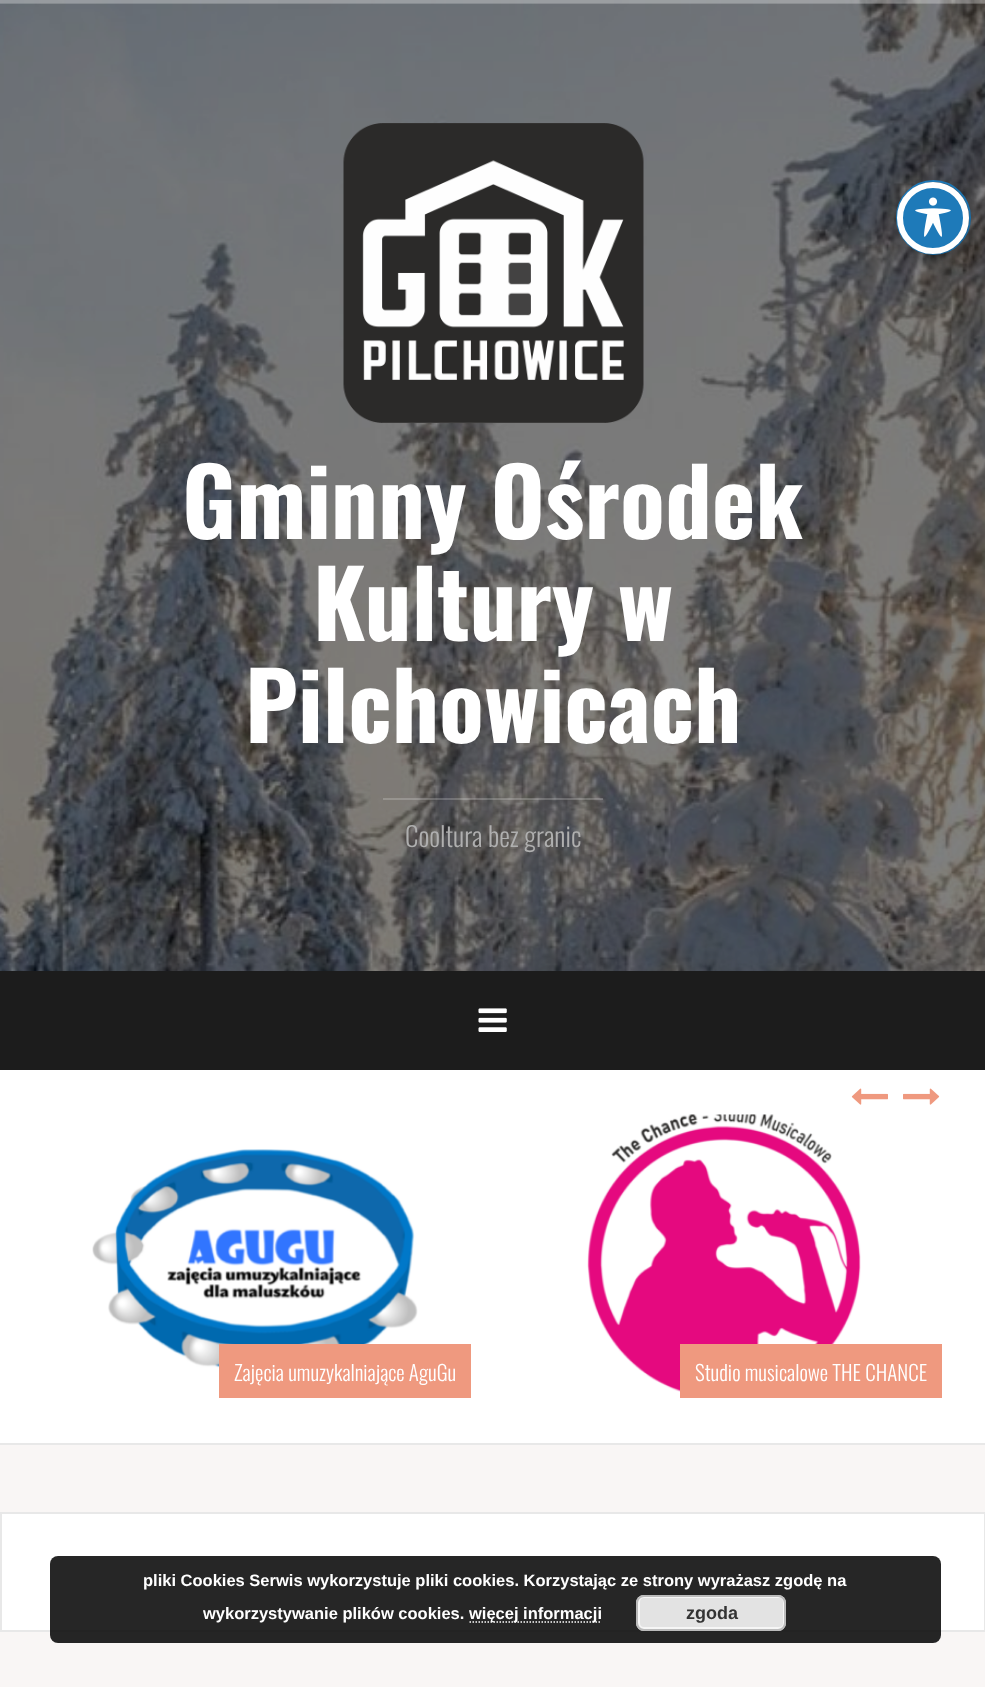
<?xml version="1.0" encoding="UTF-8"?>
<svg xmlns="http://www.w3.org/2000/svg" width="985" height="1687">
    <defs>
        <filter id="blur1" x="-50%" y="-200%" width="200%" height="500%"><feGaussianBlur stdDeviation="12"/></filter>
    </defs>
    <rect width="100%" height="100%" fill="#F9F6F5"/>
    <image x="0" y="0" width="985" height="971" href="img_02.png"/>
    <circle cx="933.5" cy="217.5" r="36.5" fill="none" stroke="#1E7AB9" stroke-width="2"/>
    <rect x="906" y="194" width="72" height="72" rx="36" fill="#000000" fill-opacity="0.2" filter="url(#blur1)"/>
    <circle cx="933" cy="218" r="33" fill="#1E7AB9" stroke="#FFFFFF" stroke-width="6"/>
    <image x="915" y="197" width="36" height="40" href="img_01.png"/>
    <rect x="0" y="0" width="985" height="3" fill="#FFFFFF" fill-opacity="0.15"/>
    <rect x="0" y="0" width="985" height="2" fill="#FFFFFF" fill-opacity="0.2"/>
    <rect x="0" y="2" width="985" height="2" fill="#FFFFFF" fill-opacity="0.2"/>
    <image x="343" y="123" width="301" height="300" href="img_03.png"/>
    <text x="182" y="539" font-family="Oswald" font-size="93" font-weight="700" fill="#FFFFFF">Gminny Ośrodek</text>
    <text x="313" y="641" font-family="Oswald" font-size="93" font-weight="700" fill="#FFFFFF">Kultury w</text>
    <text x="245" y="743" font-family="Oswald" font-size="93" font-weight="700" fill="#FFFFFF">Pilchowicach</text>
    <rect x="383" y="798" width="220" height="2" fill="#FFFFFF" fill-opacity="0.2"/>
    <text x="405" y="847" font-family="Oswald" font-size="27" font-weight="300" fill="#AFAFAF">Cooltura bez granic</text>
    <rect x="0" y="971" width="985" height="99" fill="#1C1C1C"/>
    <image x="478" y="1008" width="29" height="24" href="img_04.png"/>
    <rect x="0" y="1070" width="985" height="373" fill="#FFFFFF"/>
    <rect x="0" y="1443" width="985" height="2" fill="#E8E8E8"/>
    <image x="851" y="1088" width="37" height="17" href="img_05.png"/>
    <image x="903" y="1088" width="37" height="17" href="img_06.png"/>
    <image x="92" y="1149" width="326" height="224" href="img_07.png"/>
    <rect x="219" y="1344" width="252" height="54" fill="#EF997F"/>
    <text x="234" y="1381" font-family="Oswald" font-size="21" font-weight="300" fill="#FFFFFF">Zajęcia umuzykalniające AguGu</text>
    <image x="587" y="1114" width="274" height="284" href="img_08.png"/>
    <rect x="680" y="1344" width="262" height="54" fill="#EF997F"/>
    <text x="695" y="1381" font-family="Oswald" font-size="21" font-weight="300" fill="#FFFFFF">Studio musicalowe THE CHANCE</text>
    <rect x="1" y="1513" width="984" height="118" fill="#FFFFFF" stroke="#E8E8E8" stroke-width="2"/>
    <rect x="50" y="1556" width="891" height="87" rx="8" fill="#000000" fill-opacity="0.85"/>
    <text x="143" y="1586" font-family="Liberation Sans" font-size="16.5" font-weight="700" fill="#FFFFFF">pliki Cookies Serwis wykorzystuje pliki cookies. Korzystając ze strony wyrażasz zgodę na</text>
    <text x="203" y="1619" font-family="Liberation Sans" font-size="16.5" font-weight="700" fill="#FFFFFF">wykorzystywanie plików cookies.</text>
    <path d="M 469.5 1622 H 601.5" fill="none" stroke="#FFFFFF" stroke-width="1.5" stroke-dasharray="1.5 1.5"/>
    <text x="469" y="1619" font-family="Liberation Sans" font-size="16.5" font-weight="700" fill="#FFFFFF">więcej informacji</text>
    <rect x="636" y="1595" width="150" height="36" rx="8" fill="#E3E3E3"/>
    <rect x="639" y="1597" width="145" height="31" rx="5" fill="none" stroke="#F6F6F6" stroke-width="2"/>
    <rect x="637" y="1596" width="148" height="34" rx="7" fill="none" stroke="#BBBBBB" stroke-width="2"/>
    <text x="686" y="1619" font-family="Liberation Sans" font-size="18" font-weight="700" fill="#333333">zgoda</text>
</svg>
